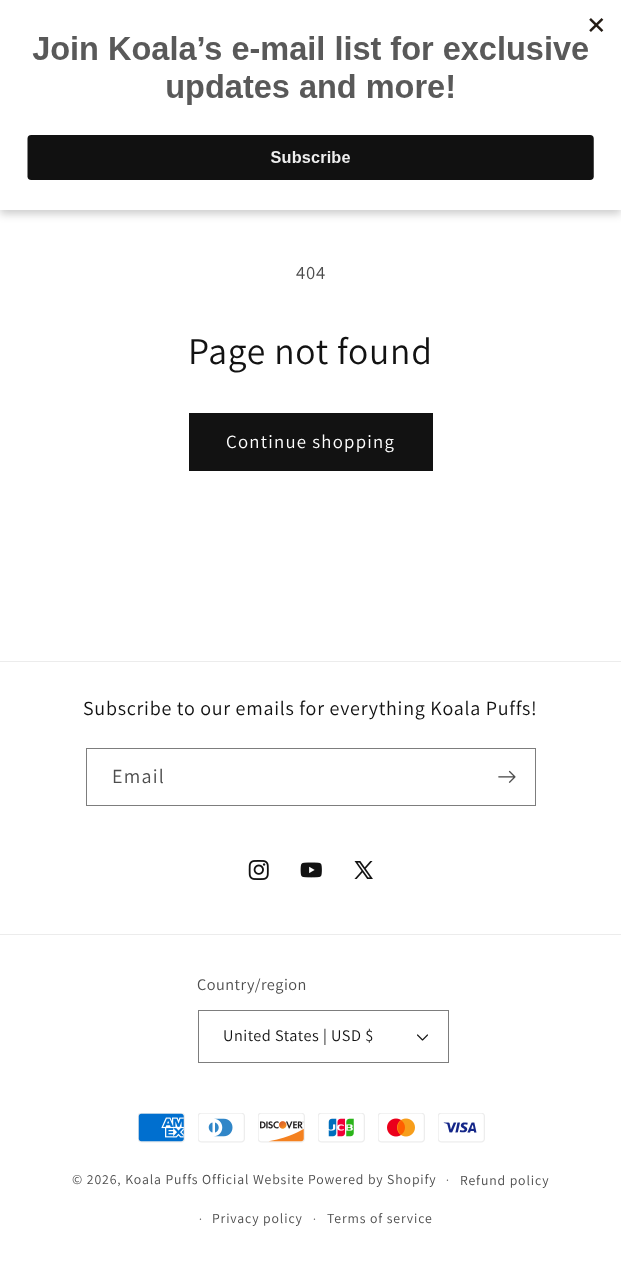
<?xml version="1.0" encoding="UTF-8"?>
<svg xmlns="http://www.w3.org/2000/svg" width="621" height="1271">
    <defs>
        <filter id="blur1" x="-50%" y="-200%" width="200%" height="500%"><feGaussianBlur stdDeviation="4"/></filter>
    </defs>
    <rect width="100%" height="100%" fill="#FFFFFF"/>
    <rect x="0" y="4" width="621" height="210" fill="#000000" fill-opacity="0.2" filter="url(#blur1)"/>
    <rect x="0" y="0" width="621" height="210" fill="#FFFFFF"/>
    <image x="27" y="18" width="577" height="162" href="img_01.png"/>
    <text x="296" y="279" font-family="Assistant" font-size="18.75" letter-spacing="0.75" fill="#4D4D4D">404</text>
    <text x="188" y="364" font-family="Assistant" font-size="37.5" letter-spacing="0.75" fill="#121212">Page not found</text>
    <rect x="189" y="413" width="244" height="58" fill="#121212"/>
    <text x="226" y="448" font-family="Assistant" font-size="18.75" letter-spacing="1.25" fill="#FFFFFF">Continue shopping</text>
    <rect x="0" y="661" width="621" height="1" fill="#ECECEC"/>
    <text x="83" y="715" font-family="Assistant" font-size="20" letter-spacing="0.75" fill="#121212">Subscribe to our emails for everything Koala Puffs!</text>
    <rect x="86.5" y="748.5" width="449" height="57" fill="none" stroke="#7D7D7D"/>
    <text x="112" y="783" font-family="Assistant" font-size="20" letter-spacing="1.25" fill="#4D4D4D">Email</text>
    <image x="498" y="770" width="18" height="13" href="img_02.png"/>
    <image x="248" y="860" width="21" height="20" href="img_03.png"/>
    <image x="300" y="862" width="22" height="16" href="img_04.png"/>
    <image x="354" y="861" width="19" height="18" href="img_05.png"/>
    <rect x="0" y="934" width="621" height="1" fill="#ECECEC"/>
    <text x="197" y="990" font-family="Assistant" font-size="16.25" letter-spacing="0.5" fill="#4D4D4D">Country/region</text>
    <image x="417" y="1034" width="11" height="7" href="img_06.png"/>
    <rect x="198.5" y="1010.5" width="250" height="52" fill="none" stroke="#7D7D7D"/>
    <text x="223" y="1041" font-family="Assistant" font-size="16.25" letter-spacing="0.5" fill="#121212">United States | USD $</text>
    <image x="138" y="1113" width="47" height="30" href="img_07.png"/>
    <image x="198" y="1113" width="47" height="30" href="img_08.png"/>
    <image x="258" y="1113" width="47" height="30" href="img_09.png"/>
    <image x="318" y="1113" width="47" height="30" href="img_10.png"/>
    <image x="378" y="1113" width="47" height="30" href="img_11.png"/>
    <image x="438" y="1113" width="47" height="30" href="img_12.png"/>
    <text x="72" y="1184" font-family="Assistant" font-size="13.75" letter-spacing="0.88" fill="#4D4D4D">© 2026, Koala Puffs Official Website Powered by Shopify</text>
    <text x="446" y="1184" font-family="Assistant" font-size="12" letter-spacing="0.88" fill="#4D4D4D">·</text>
    <text x="460" y="1185" font-family="Assistant" font-size="13.75" letter-spacing="0.88" fill="#4D4D4D">Refund policy</text>
    <text x="199" y="1223" font-family="Assistant" font-size="12" letter-spacing="0.88" fill="#4D4D4D">·</text>
    <text x="212" y="1223" font-family="Assistant" font-size="13.75" letter-spacing="0.88" fill="#4D4D4D">Privacy policy</text>
    <text x="313" y="1223" font-family="Assistant" font-size="12" letter-spacing="0.88" fill="#4D4D4D">·</text>
    <text x="327" y="1223" font-family="Assistant" font-size="13.75" letter-spacing="0.88" fill="#4D4D4D">Terms of service</text>
</svg>
